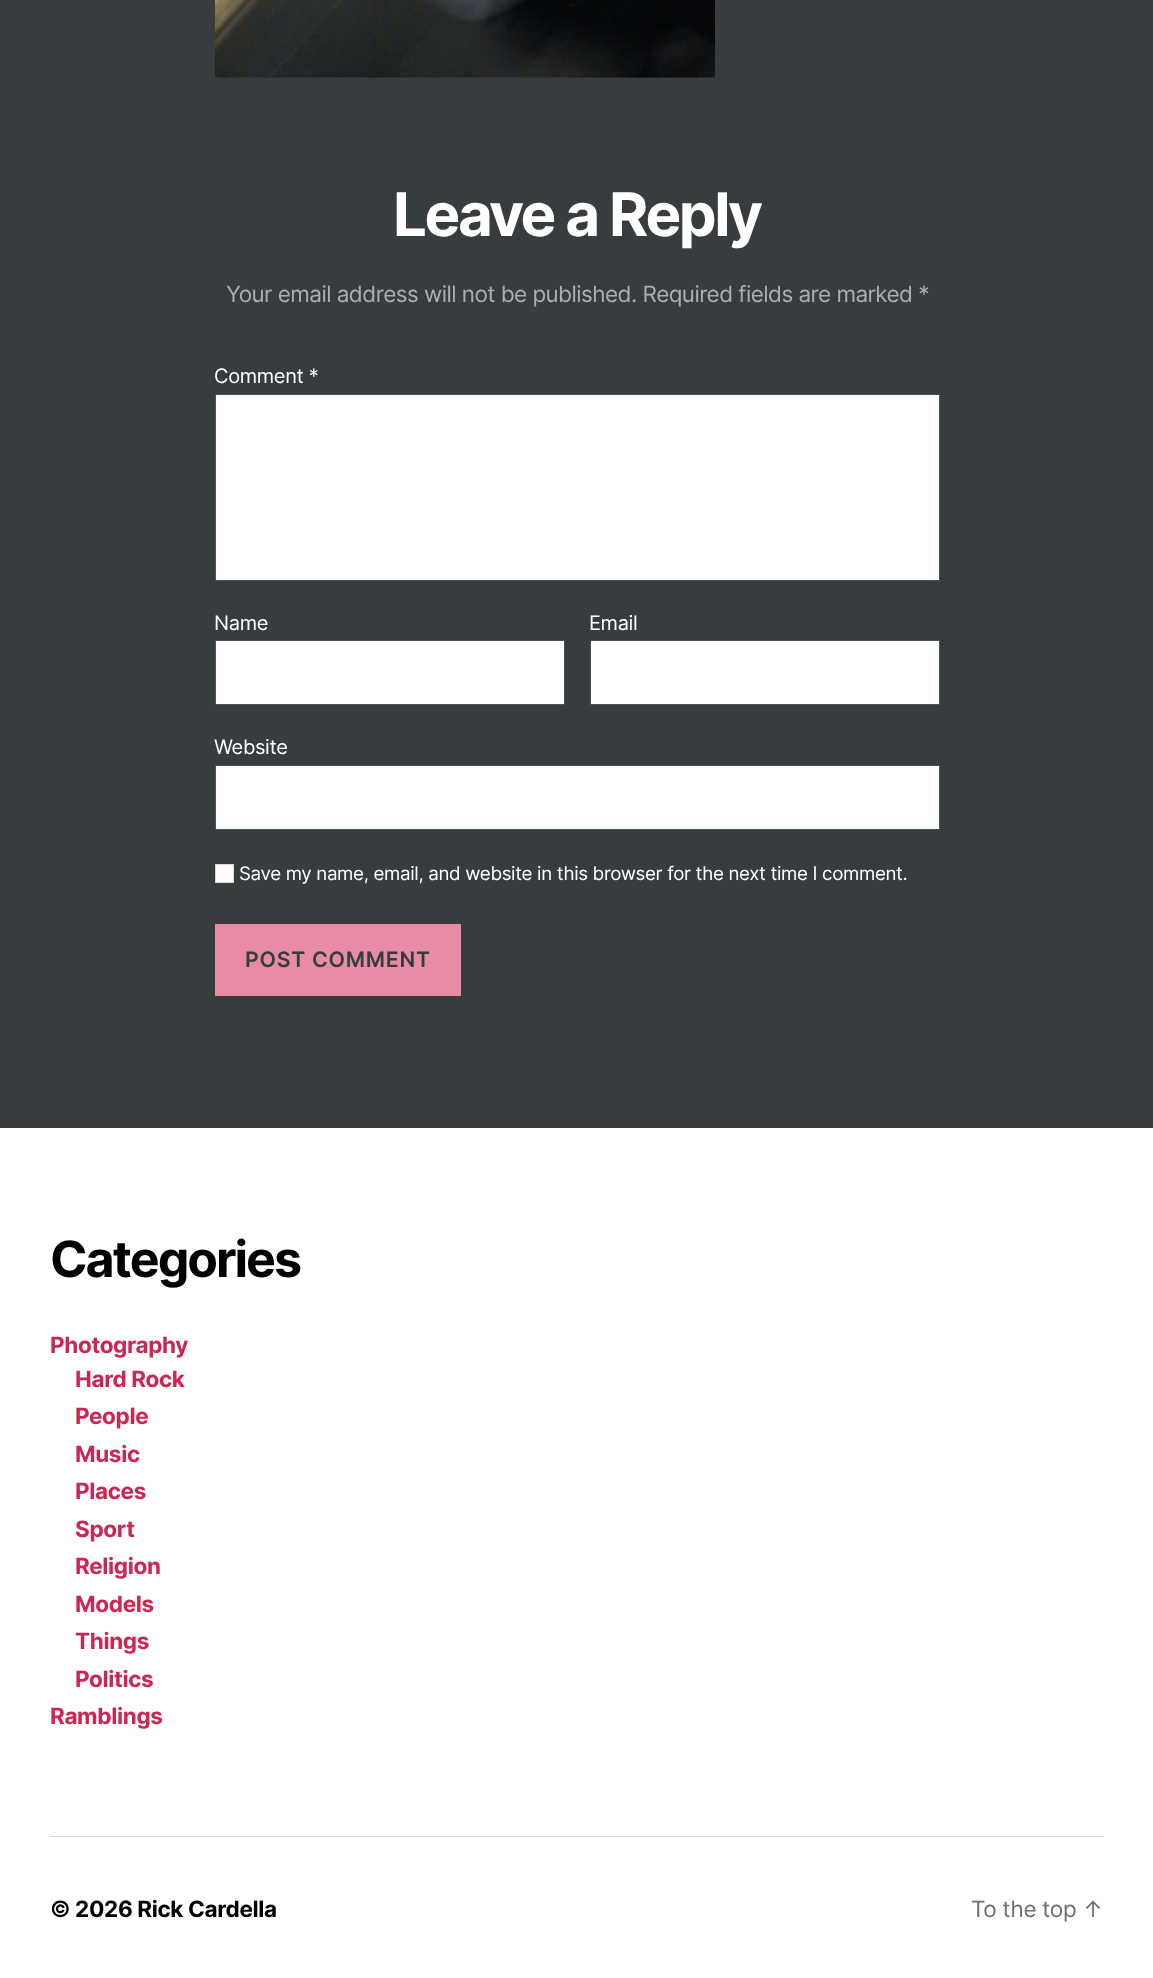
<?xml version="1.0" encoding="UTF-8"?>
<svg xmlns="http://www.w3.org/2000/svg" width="1153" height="1978">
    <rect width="100%" height="100%" fill="#373D3F"/>
    <image x="215" y="0" width="500" height="78" href="img_01.png"/>
    <text x="393" y="236" font-family="Inter" font-size="60" font-weight="700" letter-spacing="-2.5" fill="#FFFFFF">Leave a Reply</text>
    <text x="226" y="302" font-family="Inter" font-size="22.5" letter-spacing="-0.55" fill="#AAAFB0">Your email address will not be published. Required fields are marked *</text>
    <text x="214" y="383" font-family="Inter" font-size="20" letter-spacing="-0.35" fill="#FFFFFF">Comment *</text>
    <rect x="215.5" y="394.5" width="724" height="186" fill="#FFFFFF" stroke="#495254"/>
    <text x="214" y="630" font-family="Inter" font-size="20" letter-spacing="-0.35" fill="#FFFFFF">Name</text>
    <rect x="215.5" y="640.5" width="349" height="64" fill="#FFFFFF" stroke="#495254"/>
    <text x="589" y="630" font-family="Inter" font-size="20" letter-spacing="-0.35" fill="#FFFFFF">Email</text>
    <rect x="590.5" y="640.5" width="349" height="64" fill="#FFFFFF" stroke="#495254"/>
    <text x="214" y="754" font-family="Inter" font-size="20" letter-spacing="-0.35" fill="#FFFFFF">Website</text>
    <rect x="215.5" y="765.5" width="724" height="64" fill="#FFFFFF" stroke="#495254"/>
    <rect x="215.5" y="864.5" width="18" height="18" fill="#FFFFFF" stroke="#DCD7CA"/>
    <text x="239" y="880" font-family="Inter" font-size="18.75" letter-spacing="-0.35" fill="#FFFFFF">Save my name, email, and website in this browser for the next time I comment.</text>
    <rect x="215" y="924" width="246" height="72" fill="#E88BA4"/>
    <text x="245" y="967" font-family="Inter" font-size="21.25" font-weight="600" letter-spacing="0.75" fill="#373D3F">POST COMMENT</text>
    <rect x="0" y="1128" width="1153" height="850" fill="#FFFFFF"/>
    <rect x="50" y="1836" width="1054" height="1" fill="#DCD7CA"/>
    <text x="50" y="1277" font-family="Inter" font-size="50" font-weight="700" letter-spacing="-2" fill="#000000">Categories</text>
    <text x="50" y="1353" font-family="Inter" font-size="22.5" font-weight="700" letter-spacing="-0.35" fill="#CD2653">Photography</text>
    <text font-family="Inter" font-size="22.5" font-weight="700" letter-spacing="-0.35" fill="#CD2653">
        <tspan x="75" y="1387">Hard Rock</tspan>
        <tspan x="75" y="1424">People</tspan>
        <tspan x="75" y="1462">Music</tspan>
        <tspan x="75" y="1499">Places</tspan>
        <tspan x="75" y="1537">Sport</tspan>
        <tspan x="75" y="1574">Religion</tspan>
        <tspan x="75" y="1612">Models</tspan>
        <tspan x="75" y="1649">Things</tspan>
        <tspan x="75" y="1687">Politics</tspan>
    </text>
    <text x="50" y="1724" font-family="Inter" font-size="22.5" font-weight="700" letter-spacing="-0.35" fill="#CD2653">Ramblings</text>
    <text x="50" y="1917" font-family="Inter" font-size="22.5" font-weight="700" letter-spacing="-0.35" fill="#000000">© 2026 Rick Cardella</text>
    <text x="971" y="1917" font-family="Inter" font-size="22.5" letter-spacing="-0.35" fill="#6D6D6D">To the top ↑</text>
</svg>
